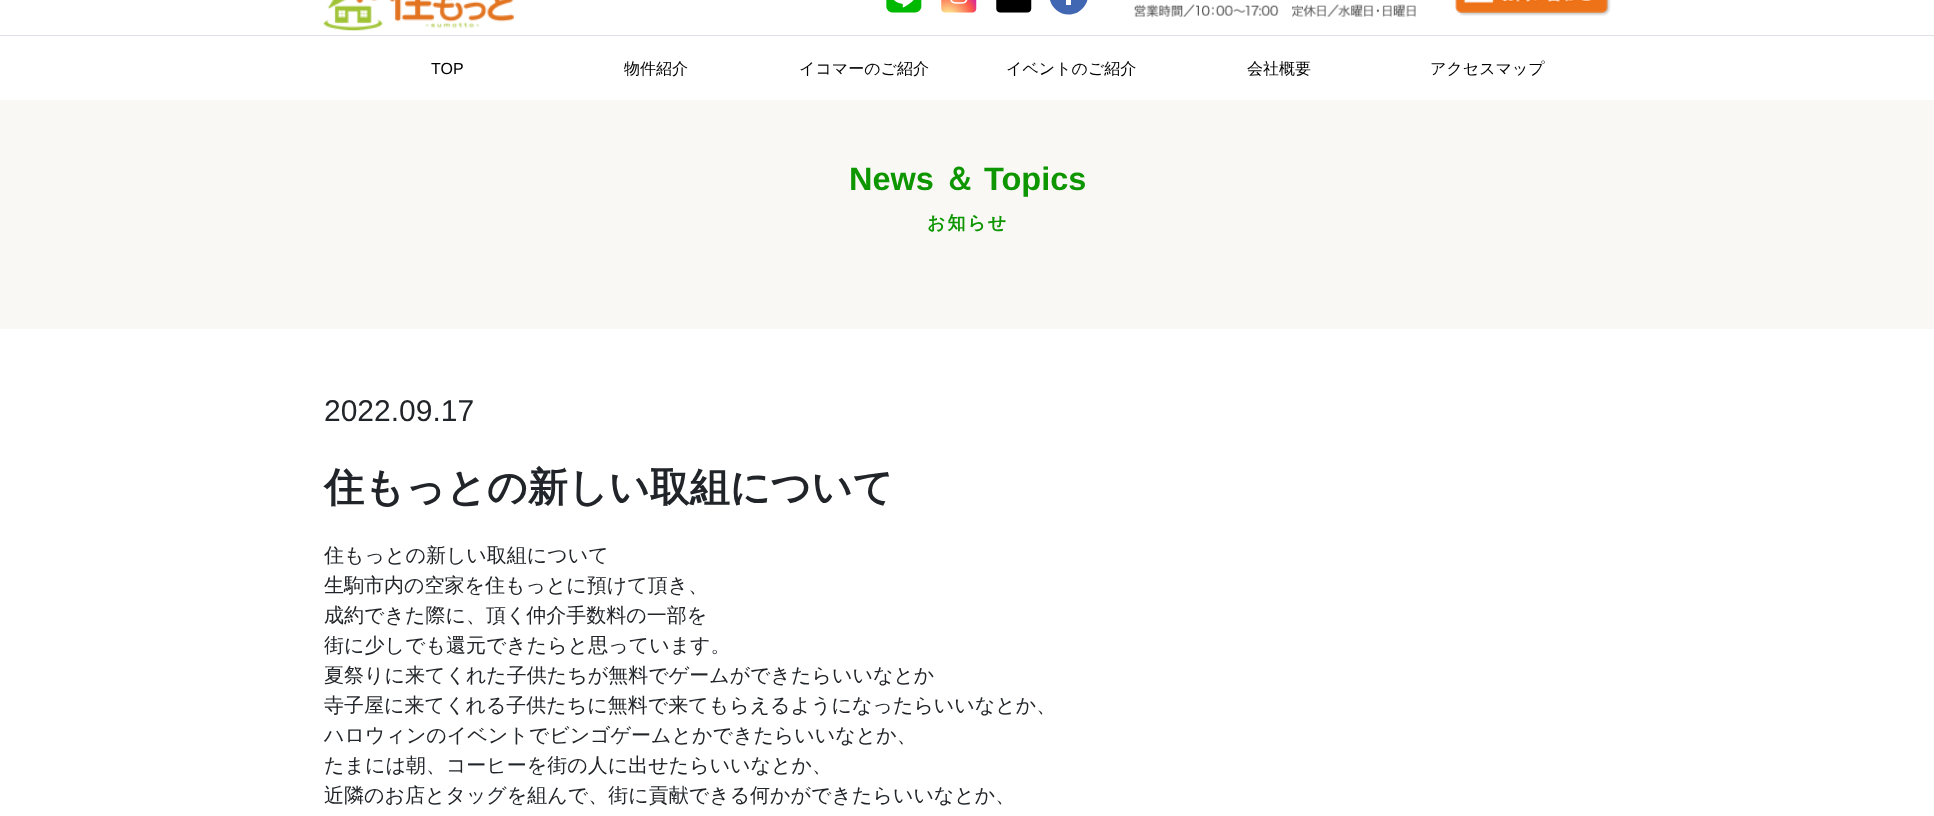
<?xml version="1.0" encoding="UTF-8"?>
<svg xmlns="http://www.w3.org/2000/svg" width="1934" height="816">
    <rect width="100%" height="100%" fill="#FFFFFF"/>
    <rect x="0" y="35" width="1934" height="1" fill="#DEE2E6"/>
    <image x="323" y="0" width="191" height="31" href="img_01.png"/>
    <image x="886" y="0" width="36" height="13" href="img_02.png"/>
    <image x="941" y="0" width="36" height="13" href="img_03.png"/>
    <image x="950" y="0" width="18" height="4" href="img_04.png"/>
    <image x="996" y="0" width="36" height="13" href="img_05.png"/>
    <path d="M 1055 -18.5 C 1068 -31.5 1089.5 -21 1088 -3 C 1087.5 1.5 1085.5 5.5 1082.5 8.5 C 1079.5 12 1075 14 1070.5 14.5 C 1052.5 16 1042 -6 1055 -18.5 Z" fill="#4267B2"/>
    <rect x="1066" y="0" width="5" height="5" fill="#FFFFFF"/>
    <image x="1134" y="4" width="282" height="14" href="img_06.png"/>
    <image x="1455" y="0" width="156" height="16" href="img_07.png"/>
    <text x="431" y="74" font-family="Liberation Sans" font-size="16" fill="#000000">TOP</text>
    <text x="624" y="74" font-family="WenQuanYi Zen Hei" font-size="16" font-weight="500" fill="#000000">物件紹介</text>
    <text x="799" y="74" font-family="WenQuanYi Zen Hei" font-size="16" font-weight="500" fill="#000000">イコマーのご紹介</text>
    <text x="1006" y="74" font-family="WenQuanYi Zen Hei" font-size="16" font-weight="500" fill="#000000">イベントのご紹介</text>
    <text x="1247" y="74" font-family="WenQuanYi Zen Hei" font-size="16" font-weight="500" fill="#000000">会社概要</text>
    <text x="1430" y="74" font-family="WenQuanYi Zen Hei" font-size="16" font-weight="500" fill="#000000">アクセスマップ</text>
    <rect x="0" y="100" width="1934" height="229" fill="#F9F8F4"/>
    <text x="849" y="190" font-family="Liberation Sans" font-size="32.5" font-weight="700" fill="#0D9600">News</text>
    <text x="943" y="190" font-family="WenQuanYi Zen Hei" font-size="32.5" font-weight="700" fill="#0D9600">＆</text>
    <text x="984" y="190" font-family="Liberation Sans" font-size="32.5" font-weight="700" fill="#0D9600">Topics</text>
    <text x="927" y="229" font-family="WenQuanYi Zen Hei" font-size="18" font-weight="700" letter-spacing="2" fill="#0D9600">お知らせ</text>
    <text x="324" y="421" font-family="Liberation Sans" font-size="30" fill="#212529">2022.09.17</text>
    <text x="324" y="501" font-family="WenQuanYi Zen Hei" font-size="40" font-weight="700" fill="#212529">住もっとの新しい取組について</text>
    <text font-family="WenQuanYi Zen Hei" font-size="20" font-weight="500" fill="#212529">
        <tspan x="324" y="562">住もっとの新しい取組について</tspan>
        <tspan x="324" y="592">生駒市内の空家を住もっとに預けて頂き、</tspan>
        <tspan x="324" y="622">成約できた際に、頂く仲介手数料の一部を</tspan>
        <tspan x="324" y="652">街に少しでも還元できたらと思っています。</tspan>
        <tspan x="324" y="682">夏祭りに来てくれた子供たちが無料でゲームができたらいいなとか</tspan>
        <tspan x="324" y="712">寺子屋に来てくれる子供たちに無料で来てもらえるようになったらいいなとか、</tspan>
        <tspan x="324" y="742">ハロウィンのイベントでビンゴゲームとかできたらいいなとか、</tspan>
        <tspan x="324" y="772">たまには朝、コーヒーを街の人に出せたらいいなとか、</tspan>
        <tspan x="324" y="802">近隣のお店とタッグを組んで、街に貢献できる何かができたらいいなとか、</tspan>
    </text>
</svg>
